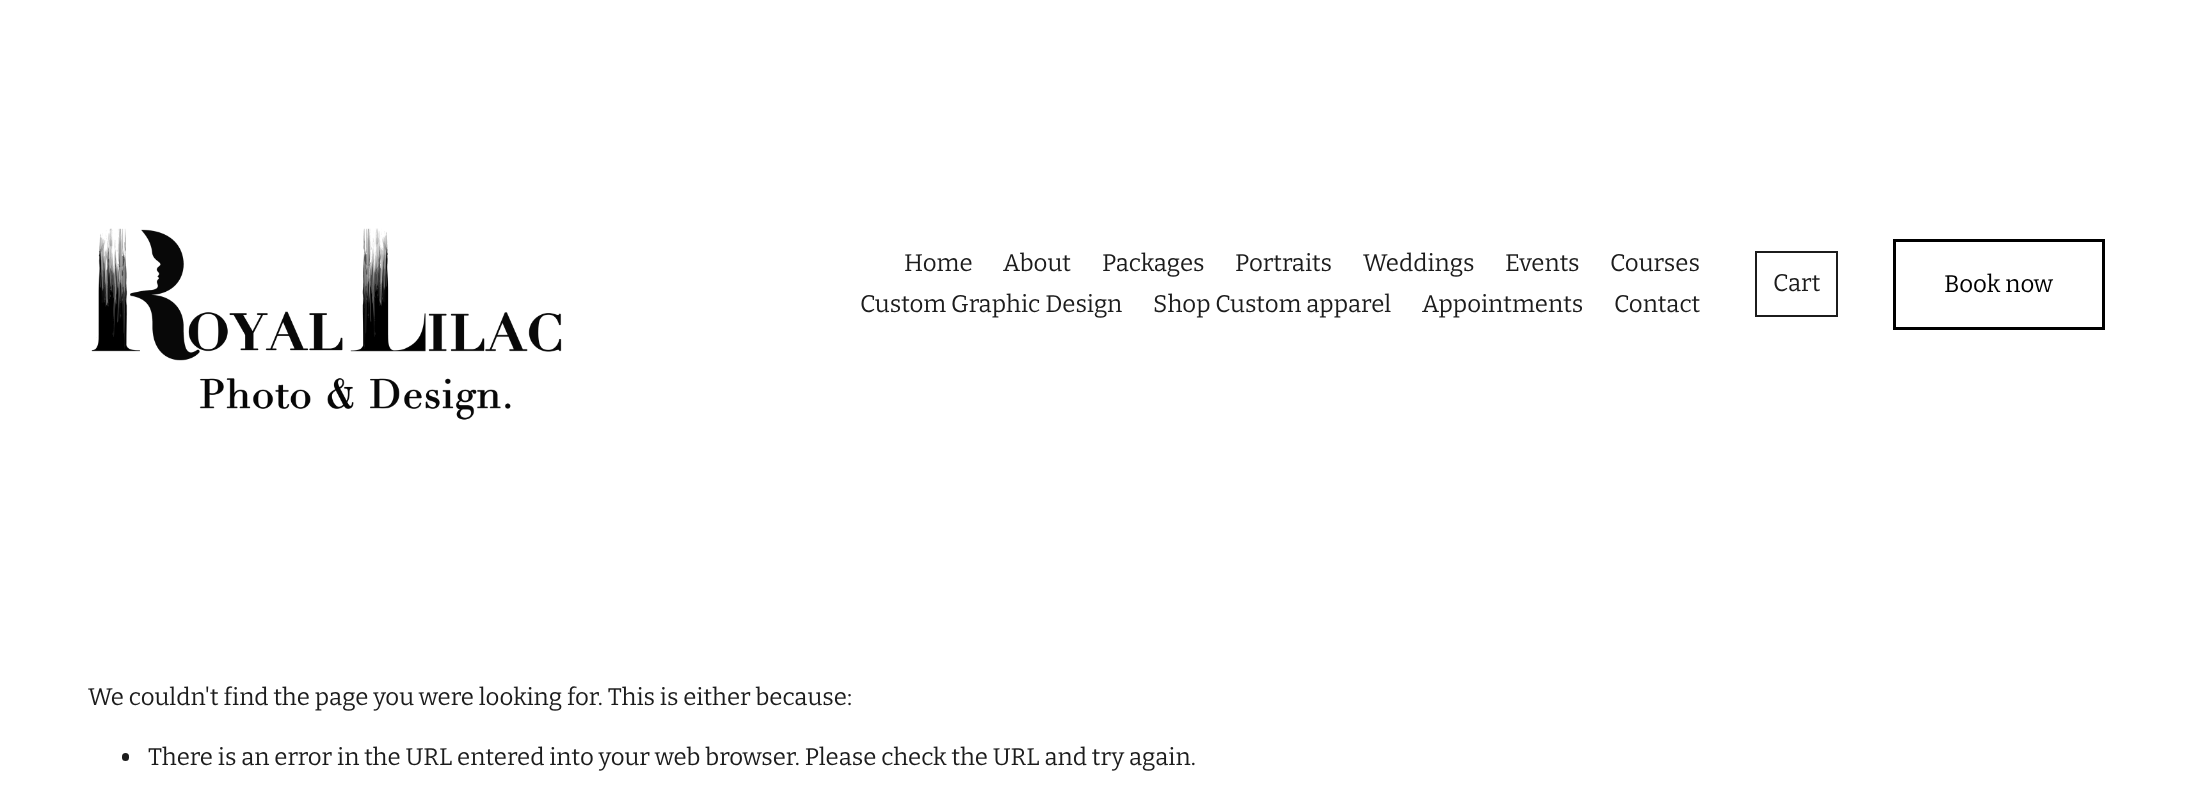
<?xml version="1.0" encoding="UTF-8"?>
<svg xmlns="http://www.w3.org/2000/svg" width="2191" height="786">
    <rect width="100%" height="100%" fill="#FFFFFF"/>
    <image x="91" y="228" width="471" height="192" href="img_01.png"/>
    <text x="904" y="271" font-family="Bitter" font-size="24" fill="#1C1C1C">Home</text>
    <text x="1003" y="271" font-family="Bitter" font-size="24" fill="#1C1C1C">About</text>
    <text x="1102" y="271" font-family="Bitter" font-size="24" fill="#1C1C1C">Packages</text>
    <text x="1235" y="271" font-family="Bitter" font-size="24" fill="#1C1C1C">Portraits</text>
    <text x="1363" y="271" font-family="Bitter" font-size="24" fill="#1C1C1C">Weddings</text>
    <text x="1505" y="271" font-family="Bitter" font-size="24" fill="#1C1C1C">Events</text>
    <text x="1610" y="271" font-family="Bitter" font-size="24" fill="#1C1C1C">Courses</text>
    <text x="860" y="312" font-family="Bitter" font-size="24" fill="#1C1C1C">Custom Graphic Design</text>
    <text x="1153" y="312" font-family="Bitter" font-size="24" fill="#1C1C1C">Shop Custom apparel</text>
    <text x="1422" y="312" font-family="Bitter" font-size="24" fill="#1C1C1C">Appointments</text>
    <text x="1614" y="312" font-family="Bitter" font-size="24" fill="#1C1C1C">Contact</text>
    <rect x="1756" y="252" width="81" height="64" fill="none" stroke="#1C1C1C" stroke-width="2"/>
    <text x="1773" y="291" font-family="Bitter" font-size="24" fill="#1C1C1C">Cart</text>
    <rect x="1894.5" y="240.5" width="209" height="88" fill="none" stroke="#000000" stroke-width="3"/>
    <text x="1944" y="292" font-family="Bitter" font-size="24" fill="#000000">Book now</text>
    <text x="88" y="705" font-family="Bitter" font-size="24" fill="#1C1C1C">We couldn't find the page you were looking for. This is either because:</text>
    <rect x="122" y="753" width="7" height="8" rx="3.5" fill="#1C1C1C"/>
    <text x="148" y="765" font-family="Bitter" font-size="24" fill="#1C1C1C">There is an error in the URL entered into your web browser. Please check the URL and try again.</text>
</svg>
